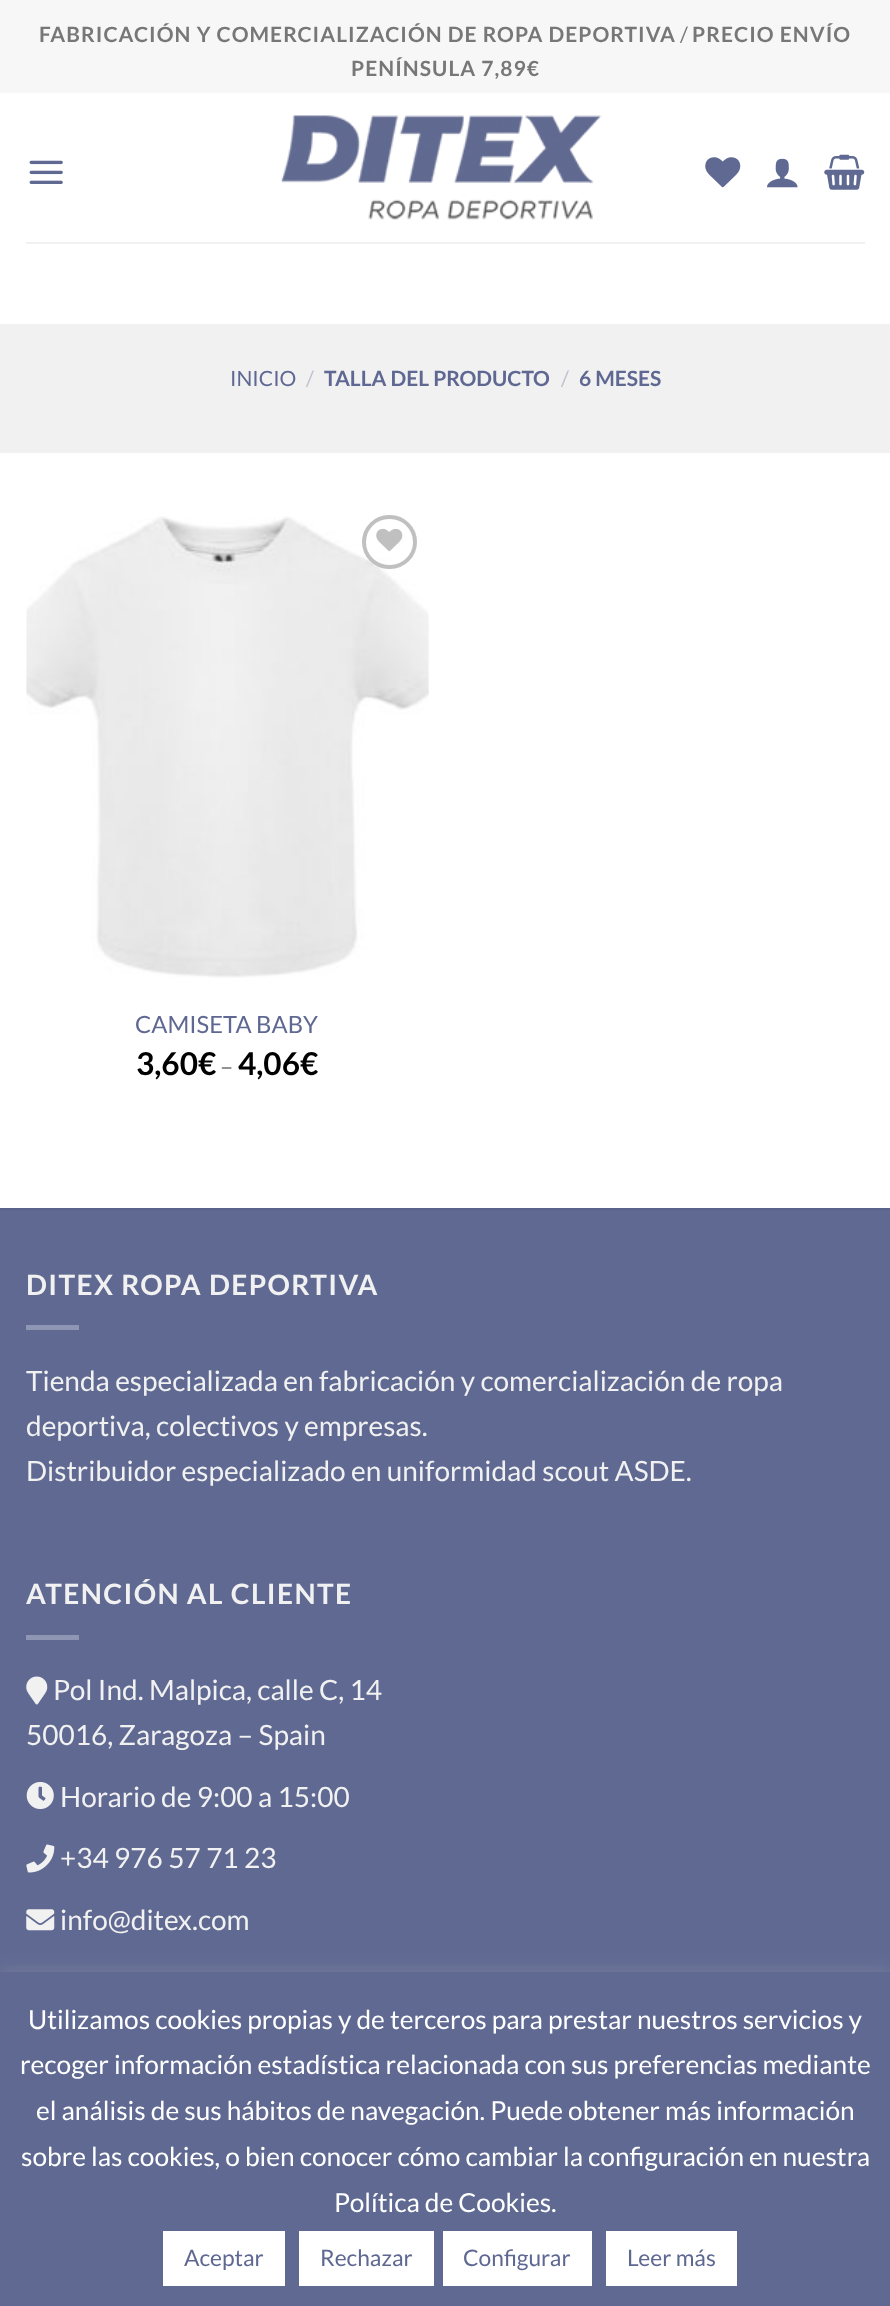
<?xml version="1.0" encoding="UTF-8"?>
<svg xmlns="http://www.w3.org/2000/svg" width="890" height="2306">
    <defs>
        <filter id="blur1" x="-50%" y="-200%" width="200%" height="500%"><feGaussianBlur stdDeviation="9"/></filter>
    </defs>
    <rect width="100%" height="100%" fill="#FFFFFF"/>
    <rect x="0" y="0" width="890" height="93" fill="#F7F7F7"/>
    <text x="39" y="42" font-family="Lato" font-size="21" font-weight="700" letter-spacing="1.05" fill="#777777">FABRICACIÓN Y COMERCIALIZACIÓN DE ROPA DEPORTIVA</text>
    <text x="680" y="42" font-family="Lato" font-size="21" fill="#777777">/</text>
    <text x="692" y="42" font-family="Lato" font-size="21" font-weight="700" letter-spacing="1.05" fill="#777777">PRECIO ENVÍO</text>
    <text x="351" y="76" font-family="Lato" font-size="21" font-weight="700" letter-spacing="1.05" fill="#777777">PENÍNSULA 7,89€</text>
    <image x="29" y="160" width="34" height="24" href="img_01.png"/>
    <image x="281" y="115" width="321" height="105" href="img_02.png"/>
    <image x="705" y="157" width="36" height="31" href="img_03.png"/>
    <image x="767" y="158" width="31" height="30" href="img_04.png"/>
    <image x="824" y="154" width="41" height="36" href="img_05.png"/>
    <rect x="26" y="242" width="839" height="2" fill="#F1F1F1"/>
    <rect x="0" y="324" width="890" height="129" fill="#F1F1F1"/>
    <text x="230" y="386" font-family="Lato" font-size="21" fill="#5F6892">INICIO</text>
    <text x="306" y="386" font-family="Lato" font-size="21" fill="#BEC1D0">/</text>
    <text x="324" y="386" font-family="Lato" font-size="21" font-weight="700" fill="#5F6892">TALLA DEL PRODUCTO</text>
    <text x="561" y="386" font-family="Lato" font-size="21" fill="#BEC1D0">/</text>
    <text x="579" y="386" font-family="Lato" font-size="21" font-weight="700" fill="#5F6892">6 MESES</text>
    <image x="26" y="516" width="403" height="462" href="img_07.png"/>
    <rect x="364" y="517" width="51" height="50" rx="25" fill="none" stroke="#C0C0C0" stroke-width="4"/>
    <image x="376" y="528" width="27" height="24" href="img_06.png"/>
    <text x="135" y="1033" font-family="Lato" font-size="23.75" fill="#5F6892">CAMISETA BABY</text>
    <text x="136" y="1075" font-family="Lato" font-size="31.5" font-weight="700" fill="#000000">3,60€</text>
    <text x="220" y="1075" font-family="Lato" font-size="23.75" fill="#777777">–</text>
    <text x="238" y="1075" font-family="Lato" font-size="31.5" font-weight="700" fill="#000000">4,06€</text>
    <rect x="0" y="1210" width="890" height="762" fill="#5F6992"/>
    <rect x="0" y="1208" width="890" height="2" fill="#5A648B"/>
    <text x="26" y="1295" font-family="Lato" font-size="28" font-weight="700" letter-spacing="1.4" fill="#F1F1F1">DITEX ROPA DEPORTIVA</text>
    <rect x="26" y="1325" width="53" height="5" fill="#8F96B3"/>
    <text font-family="Lato" font-size="28" fill="#F1F1F1">
        <tspan x="26" y="1391">Tienda especializada en fabricación y comercialización de ropa</tspan>
        <tspan x="26" y="1436">deportiva, colectivos y empresas.</tspan>
        <tspan x="26" y="1481">Distribuidor especializado en uniformidad scout ASDE.</tspan>
    </text>
    <text x="26" y="1604" font-family="Lato" font-size="28" font-weight="700" letter-spacing="1.4" fill="#F1F1F1">ATENCIÓN AL CLIENTE</text>
    <rect x="26" y="1635" width="53" height="5" fill="#8F96B3"/>
    <image x="26" y="1676" width="22" height="29" href="img_08.png"/>
    <text x="53" y="1700" font-family="Lato" font-size="28" fill="#F1F1F1">Pol Ind. Malpica, calle C, 14</text>
    <text x="26" y="1745" font-family="Lato" font-size="28" fill="#F1F1F1">50016, Zaragoza – Spain</text>
    <image x="26" y="1781" width="28" height="29" href="img_09.png"/>
    <text x="60" y="1807" font-family="Lato" font-size="28" fill="#F1F1F1">Horario de 9:00 a 15:00</text>
    <image x="26" y="1844" width="29" height="29" href="img_10.png"/>
    <text x="60" y="1868" font-family="Lato" font-size="28" fill="#F1F1F1">+34 976 57 71 23</text>
    <image x="26" y="1909" width="29" height="22" href="img_11.png"/>
    <text x="60" y="1930" font-family="Lato" font-size="28" fill="#F1F1F1">info@ditex.com</text>
    <rect x="0" y="1971" width="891" height="334" fill="#ACABAB" fill-opacity="0.3" filter="url(#blur1)"/>
    <rect x="0" y="1972" width="890" height="334" fill="#5F6992"/>
    <text x="28" y="2029" font-family="Lato" font-size="26.25" fill="#FFFFFF">Utilizamos cookies propias y de terceros para prestar nuestros servicios y</text>
    <text x="20" y="2074" font-family="Lato" font-size="26.25" fill="#FFFFFF">recoger información estadística relacionada con sus preferencias mediante</text>
    <text x="36" y="2120" font-family="Lato" font-size="26.25" fill="#FFFFFF">el análisis de sus hábitos de navegación. Puede obtener más información</text>
    <text x="21" y="2166" font-family="Lato" font-size="26.25" fill="#FFFFFF">sobre las cookies, o bien conocer cómo cambiar la configuración en nuestra</text>
    <text x="334" y="2212" font-family="Lato" font-size="26.25" fill="#FFFFFF">Política de Cookies.</text>
    <rect x="163" y="2231" width="122" height="55" fill="#FFFFFF"/>
    <text x="184" y="2266" font-family="Lato" font-size="22.75" fill="#5F6892">Aceptar</text>
    <rect x="299" y="2231" width="135" height="55" fill="#FFFFFF"/>
    <text x="320" y="2266" font-family="Lato" font-size="22.75" fill="#5F6892">Rechazar</text>
    <rect x="443" y="2231" width="149" height="55" fill="#FFFFFF"/>
    <text x="463" y="2266" font-family="Lato" font-size="22.75" fill="#5F6892">Configurar</text>
    <rect x="606" y="2231" width="131" height="55" fill="#FFFFFF"/>
    <text x="627" y="2266" font-family="Lato" font-size="22.75" fill="#5F6892">Leer más</text>
</svg>
